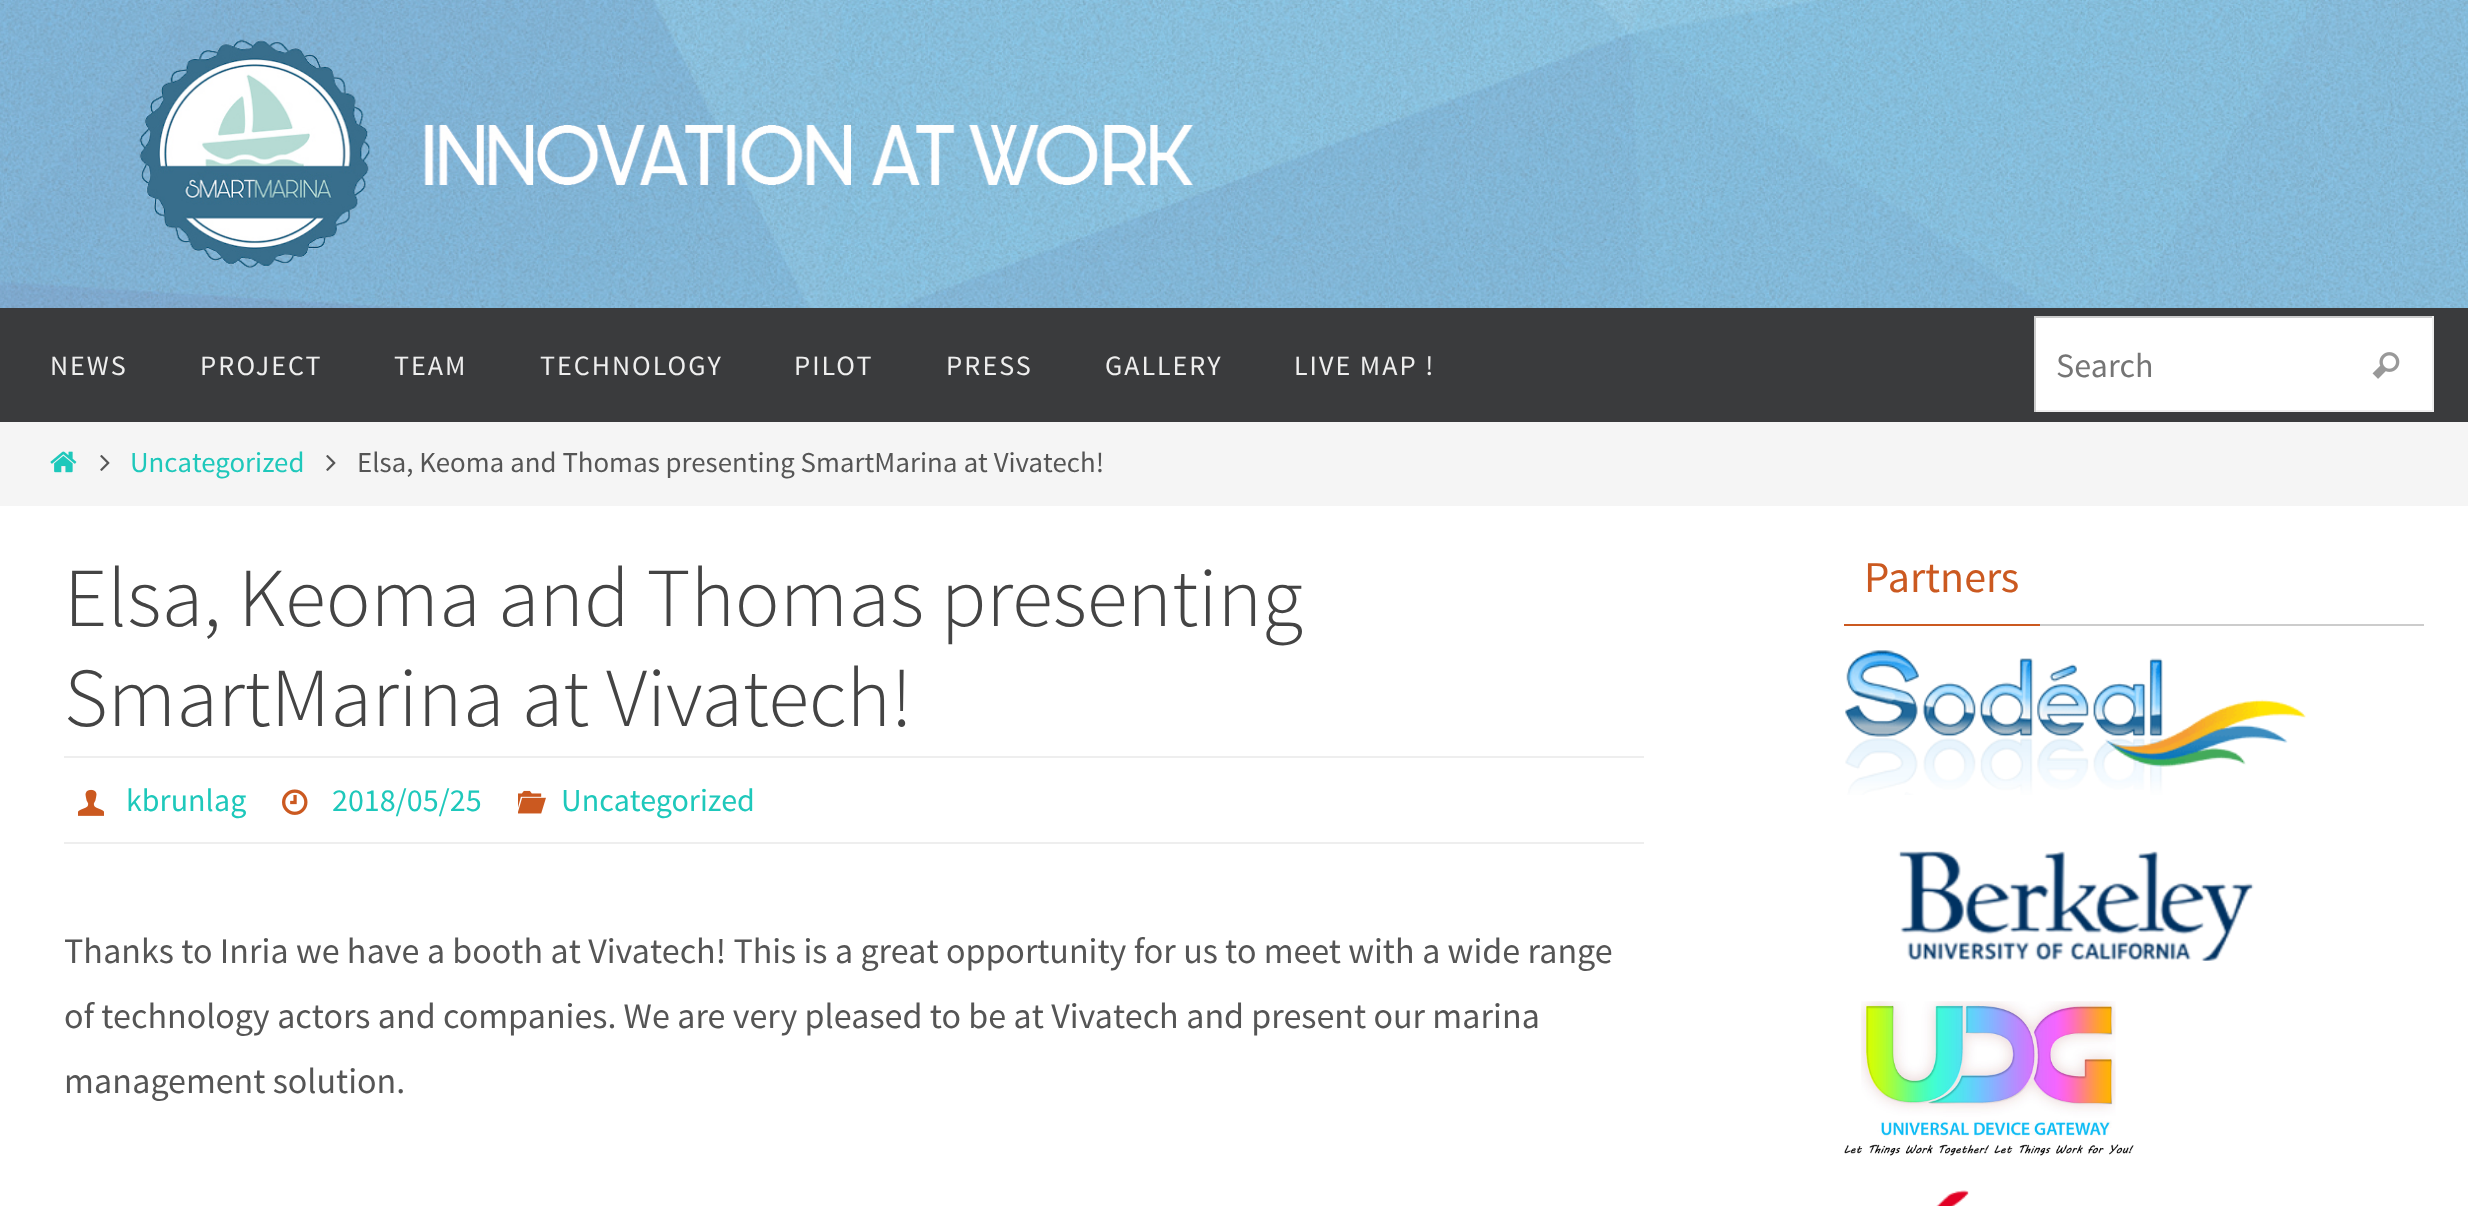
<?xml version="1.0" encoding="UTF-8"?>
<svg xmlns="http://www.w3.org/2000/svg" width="2468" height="1206">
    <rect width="100%" height="100%" fill="#FFFFFF"/>
    <image x="0" y="0" width="2468" height="308" href="img_01.png"/>
    <rect x="0" y="308" width="2468" height="114" fill="#3A3B3D"/>
    <text x="50" y="375" font-family="Source Sans Pro" font-size="28" letter-spacing="2" fill="#EEEEEE">NEWS</text>
    <text x="200" y="375" font-family="Source Sans Pro" font-size="28" letter-spacing="2" fill="#EEEEEE">PROJECT</text>
    <text x="394" y="375" font-family="Source Sans Pro" font-size="28" letter-spacing="2" fill="#EEEEEE">TEAM</text>
    <text x="540" y="375" font-family="Source Sans Pro" font-size="28" letter-spacing="2" fill="#EEEEEE">TECHNOLOGY</text>
    <text x="794" y="375" font-family="Source Sans Pro" font-size="28" letter-spacing="2" fill="#EEEEEE">PILOT</text>
    <text x="946" y="375" font-family="Source Sans Pro" font-size="28" letter-spacing="2" fill="#EEEEEE">PRESS</text>
    <text x="1105" y="375" font-family="Source Sans Pro" font-size="28" letter-spacing="2" fill="#EEEEEE">GALLERY</text>
    <text x="1294" y="375" font-family="Source Sans Pro" font-size="28" letter-spacing="2" fill="#EEEEEE">LIVE MAP !</text>
    <rect x="2036" y="318" width="396" height="92" fill="#FFFFFF"/>
    <rect x="2034" y="316" width="400" height="2" fill="#CCCCCC"/>
    <rect x="2432" y="316" width="2" height="96" fill="#EEEEEE"/>
    <rect x="2034" y="410" width="400" height="2" fill="#EEEEEE"/>
    <rect x="2034" y="316" width="2" height="96" fill="#CCCCCC"/>
    <text x="2056" y="377" font-family="Source Sans Pro" font-size="34" fill="#757575">Search</text>
    <image x="2372" y="352" width="28" height="27" href="img_02.png"/>
    <rect x="0" y="422" width="2468" height="84" fill="#F5F5F5"/>
    <image x="50" y="451" width="27" height="22" href="img_03.png"/>
    <image x="100" y="455" width="10" height="16" href="img_04.png"/>
    <text x="130" y="472" font-family="Source Sans Pro" font-size="28.8" fill="#1EC8BB">Uncategorized</text>
    <image x="326" y="455" width="10" height="16" href="img_04.png"/>
    <text x="357" y="472" font-family="Source Sans Pro" font-size="28.8" fill="#555555">Elsa, Keoma and Thomas presenting SmartMarina at Vivatech!</text>
    <text font-family="Source Sans Pro" font-size="84" font-weight="300" fill="#444444">
        <tspan x="64" y="626">Elsa, Keoma and Thomas presenting</tspan>
        <tspan x="64" y="726">SmartMarina at Vivatech!</tspan>
    </text>
    <rect x="64" y="756" width="1580" height="2" fill="#EEEEEE"/>
    <rect x="64" y="842" width="1580" height="2" fill="#EEEEEE"/>
    <image x="78" y="789" width="26" height="27" href="img_05.png"/>
    <text x="126" y="811" font-family="Source Sans Pro" font-size="32" fill="#1EC8BB">kbrunlag</text>
    <image x="282" y="789" width="26" height="26" href="img_06.png"/>
    <text x="332" y="811" font-family="Source Sans Pro" font-size="32" fill="#1EC8BB">2018/05/25</text>
    <image x="518" y="790" width="28" height="24" href="img_07.png"/>
    <text x="561" y="811" font-family="Source Sans Pro" font-size="32" fill="#1EC8BB">Uncategorized</text>
    <text font-family="Source Sans Pro" font-size="36" fill="#555555">
        <tspan x="64" y="963">Thanks to Inria we have a booth at Vivatech! This is a great opportunity for us to meet with a wide range</tspan>
        <tspan x="64" y="1028">of technology actors and companies. We are very pleased to be at Vivatech and present our marina</tspan>
        <tspan x="64" y="1093">management solution.</tspan>
    </text>
    <rect x="2040" y="624" width="384" height="2" fill="#CCCCCC"/>
    <rect x="1844" y="624" width="196" height="2" fill="#CB5920"/>
    <text x="1864" y="592" font-family="Source Sans Pro" font-size="44" fill="#CB5920">Partners</text>
    <image x="1845" y="650" width="461" height="145" href="img_08.png"/>
    <image x="1898" y="851" width="356" height="110" href="img_09.png"/>
    <image x="1844" y="1001" width="290" height="155" href="img_10.png"/>
    <image x="1936" y="1190" width="33" height="16" href="img_11.png"/>
</svg>
